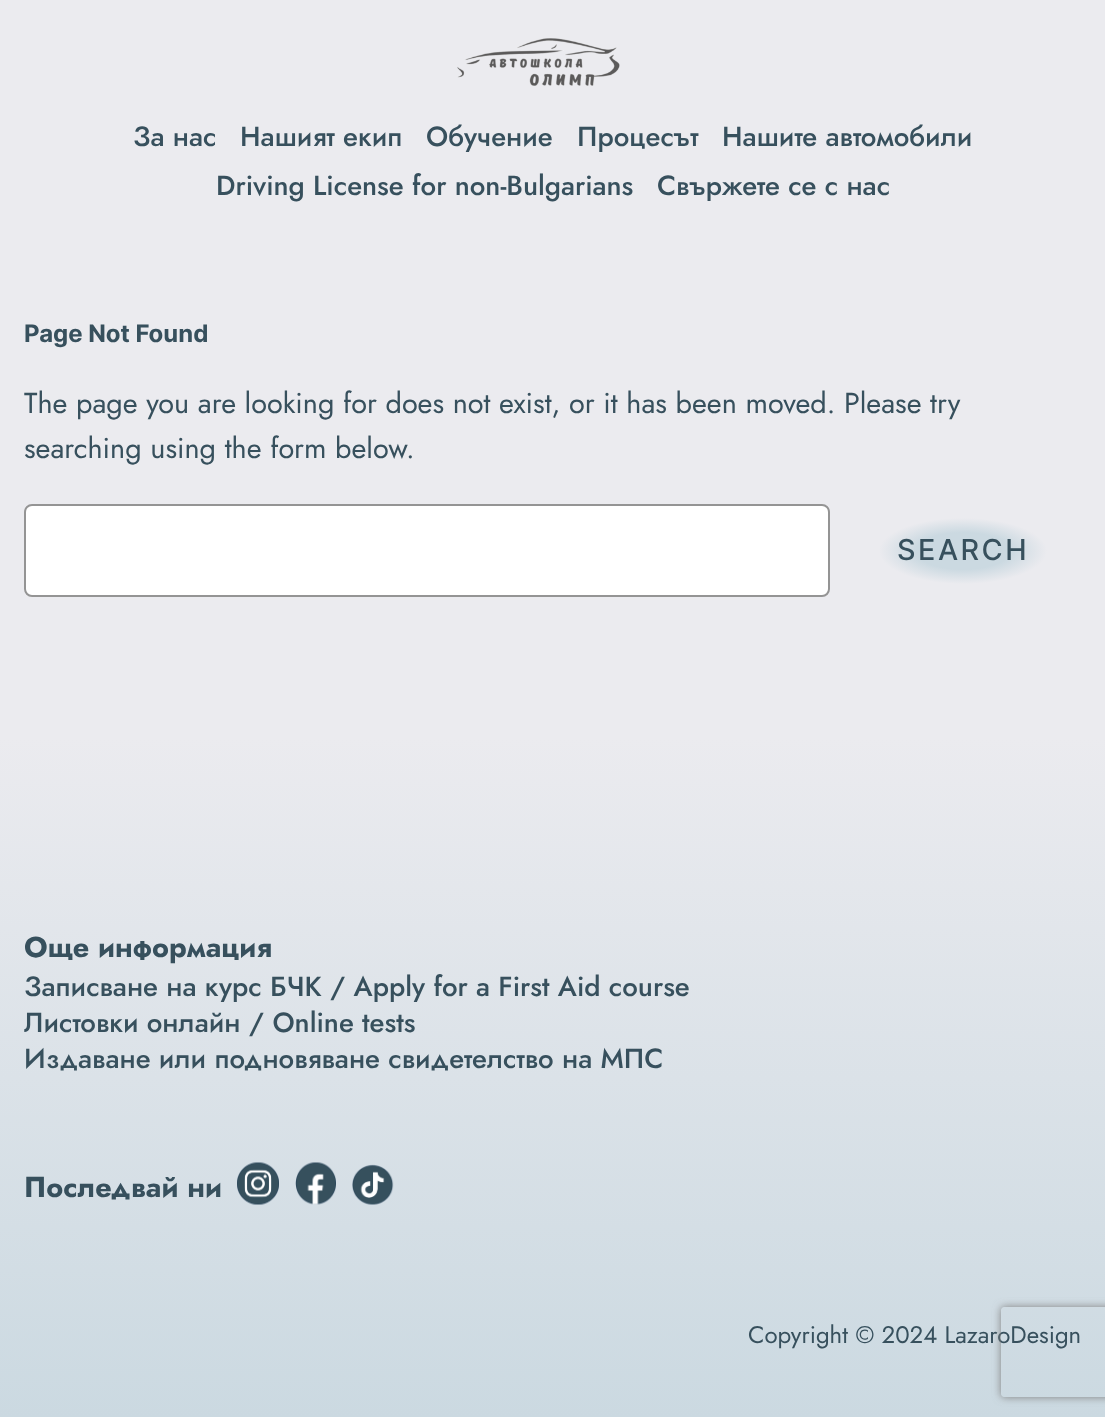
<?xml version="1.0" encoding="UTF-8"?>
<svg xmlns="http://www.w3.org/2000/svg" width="1105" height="1417">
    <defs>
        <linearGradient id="g1" gradientUnits="userSpaceOnUse" x1="553" y1="0" x2="553" y2="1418"><stop offset="0.52" stop-color="#EBEBEF"/><stop offset="1" stop-color="#CBD9E1"/></linearGradient>
        <radialGradient id="g2" gradientUnits="userSpaceOnUse" cx="0" cy="0" r="1" gradientTransform="matrix(168 0 0 66 963 551)"><stop offset="0.28" stop-color="#CBD9E1"/><stop offset="0.5" stop-color="#EBEBEF"/></radialGradient>
        <clipPath id="clip1"><path d="M 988 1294 H 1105 V 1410 H 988 Z M 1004 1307 H 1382 C 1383.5 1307 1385 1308.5 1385 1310 V 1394 C 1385 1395.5 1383.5 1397 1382 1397 H 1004 C 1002.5 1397 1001 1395.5 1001 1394 V 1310 C 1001 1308.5 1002.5 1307 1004 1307 Z" clip-rule="evenodd"/></clipPath>
        <filter id="blur1" x="-50%" y="-200%" width="200%" height="500%"><feGaussianBlur stdDeviation="4"/></filter>
    </defs>
    <rect width="100%" height="100%" fill="#FFFFFF"/>
    <rect x="0" y="0" width="1105" height="1417" fill="url(#g1)"/>
    <image x="457" y="38" width="163" height="48" href="img_01.png"/>
    <text x="133" y="146" font-family="Jost" font-size="27.65" font-weight="500" fill="#37505D">За нас</text>
    <text x="240" y="146" font-family="Jost" font-size="27.65" font-weight="500" fill="#37505D">Нашият екип</text>
    <text x="426" y="146" font-family="Jost" font-size="27.65" font-weight="500" fill="#37505D">Обучение</text>
    <text x="577" y="146" font-family="Jost" font-size="27.65" font-weight="500" fill="#37505D">Процесът</text>
    <text x="722" y="146" font-family="Jost" font-size="27.65" font-weight="500" fill="#37505D">Нашите автомобили</text>
    <text x="216" y="195" font-family="Jost" font-size="27.65" font-weight="500" fill="#37505D">Driving License for non-Bulgarians</text>
    <text x="657" y="195" font-family="Jost" font-size="27.65" font-weight="500" fill="#37505D">Свържете се с нас</text>
    <text x="24" y="342" font-family="Inter" font-size="24" font-weight="700" fill="#37505D">Page Not Found</text>
    <text font-family="Jost" font-size="28.8" fill="#37505D">
        <tspan x="24" y="413">The page you are looking for does not exist, or it has been moved. Please try</tspan>
        <tspan x="24" y="458">searching using the form below.</tspan>
    </text>
    <rect x="25" y="505" width="804" height="91" rx="7" fill="#FFFFFF" stroke="#949494" stroke-width="2"/>
    <rect x="845" y="504" width="237" height="93" rx="6" fill="url(#g2)"/>
    <text x="897" y="560" font-family="Inter" font-size="28.8" font-weight="500" letter-spacing="2.5" fill="#37505D">SEARCH</text>
    <text x="24" y="957" font-family="Jost" font-size="28.8" font-weight="700" fill="#37505D">Още информация</text>
    <text font-family="Jost" font-size="27.65" font-weight="500" fill="#37505D">
        <tspan x="24" y="996">Записване на курс БЧК / Apply for a First Aid course</tspan>
        <tspan x="24" y="1032">Листовки онлайн / Online tests</tspan>
        <tspan x="24" y="1068">Издаване или подновяване свидетелство на МПС</tspan>
    </text>
    <text x="24" y="1197" font-family="Jost" font-size="28.8" font-weight="700" fill="#37505D">Последвай ни</text>
    <image x="237" y="1162" width="42" height="43" href="img_02.png"/>
    <image x="295" y="1162" width="41" height="43" href="img_03.png"/>
    <image x="352" y="1164" width="42" height="41" href="img_04.png"/>
    <text x="748" y="1343" font-family="Jost" font-size="24" fill="#37505D">Copyright © 2024 LazaroDesign</text>
    <g clip-path="url(#clip1)">
        <rect x="1001" y="1307" width="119" height="90" rx="3" fill="#808080" filter="url(#blur1)"/>
    </g>
</svg>
